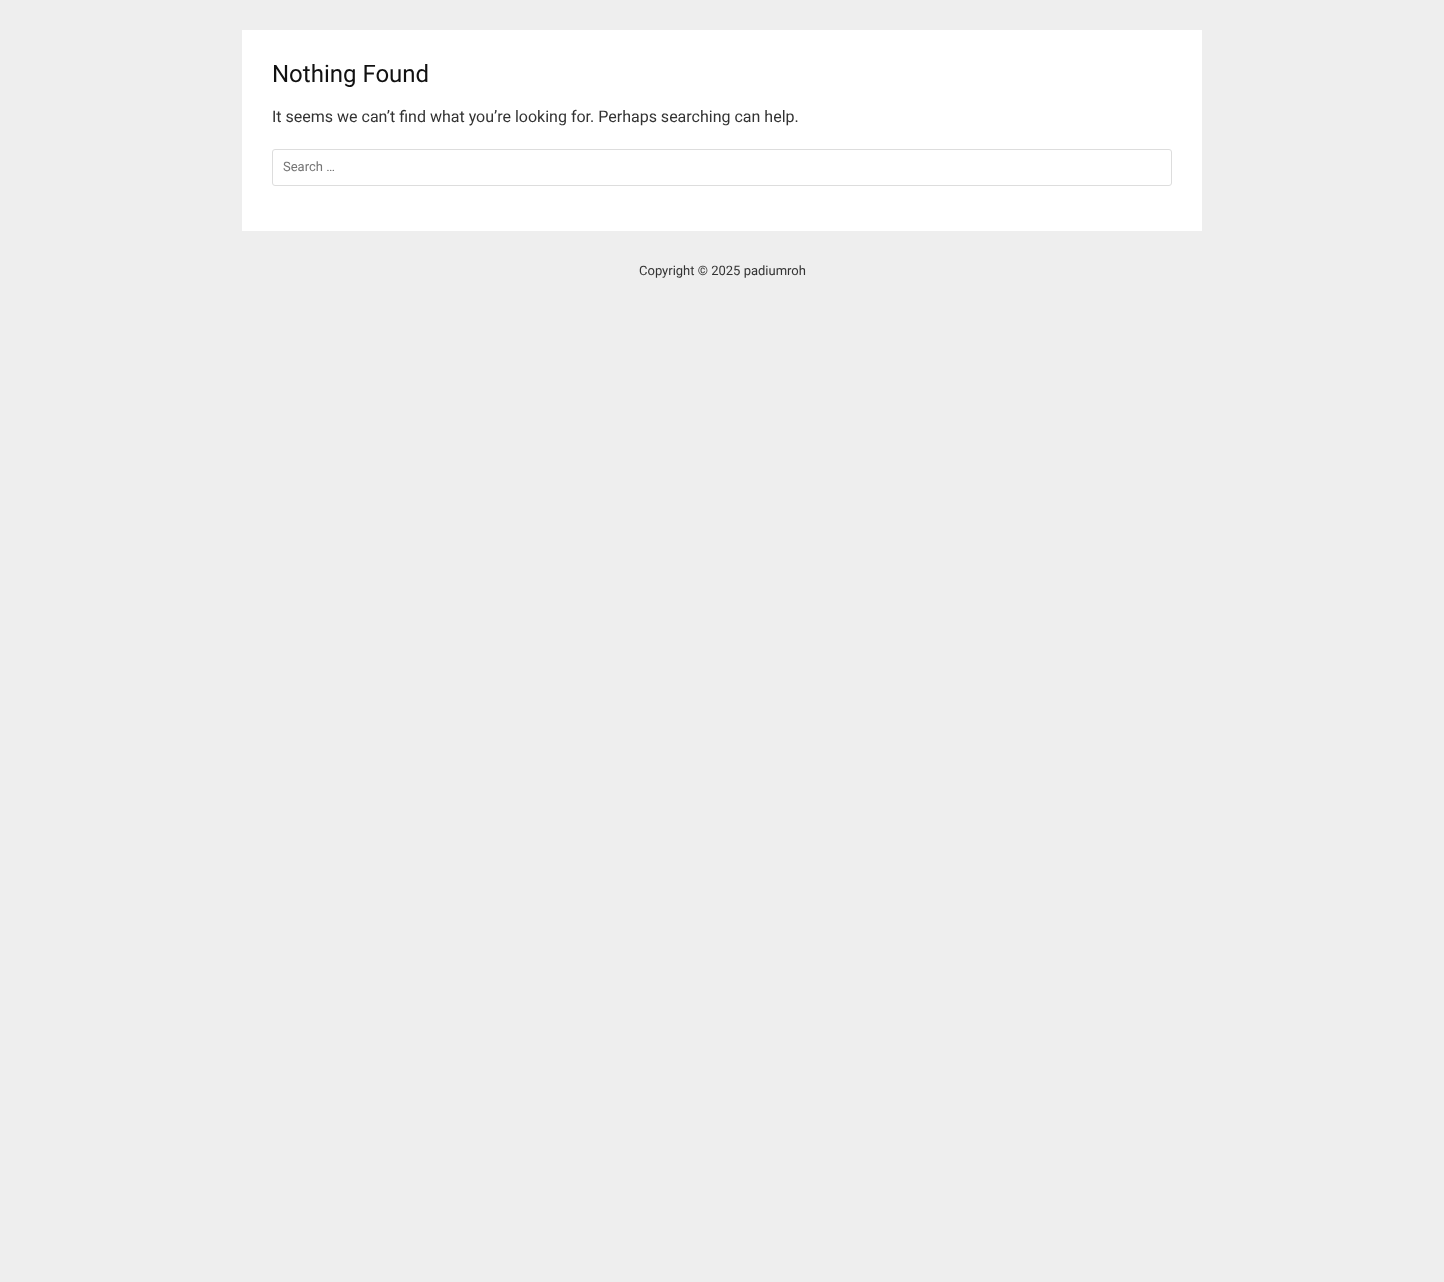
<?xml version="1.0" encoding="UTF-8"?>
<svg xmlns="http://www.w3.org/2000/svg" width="1444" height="1282">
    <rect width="100%" height="100%" fill="#EEEEEE"/>
    <rect x="242" y="30" width="960" height="201" fill="#FFFFFF"/>
    <text x="272" y="82" font-family="Roboto" font-size="24" fill="#111111">Nothing Found</text>
    <text x="272" y="122" font-family="Roboto" font-size="16" fill="#333333">It seems we can’t find what you’re looking for. Perhaps searching can help.</text>
    <rect x="272.5" y="149.5" width="899" height="36" rx="2.5" fill="none" stroke="#DDDDDD"/>
    <text x="283" y="171" font-family="Roboto" font-size="13" fill="#757575">Search …</text>
    <text x="639" y="275" font-family="Roboto" font-size="13" fill="#333333">Copyright © 2025 padiumroh</text>
</svg>
